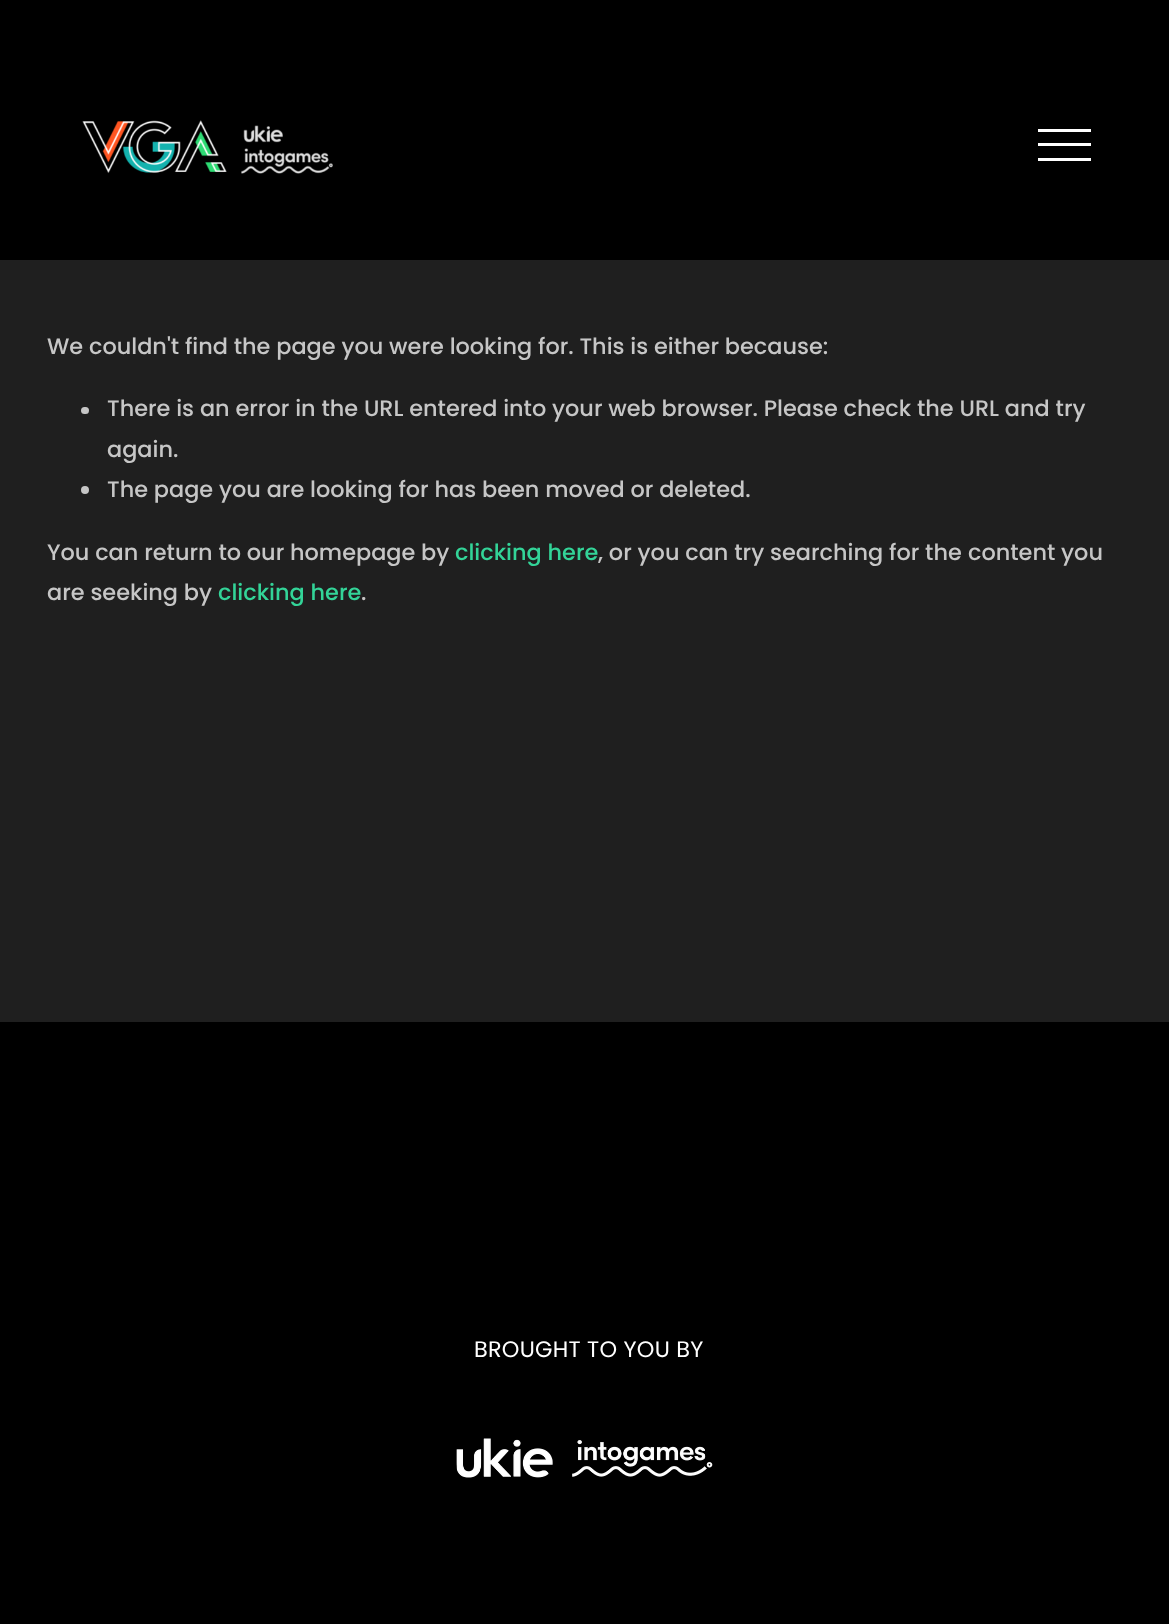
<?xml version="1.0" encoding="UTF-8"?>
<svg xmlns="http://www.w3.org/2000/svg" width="1169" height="1624">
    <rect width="100%" height="100%" fill="#1F1F1F"/>
    <rect x="0" y="0" width="1169" height="260" fill="#000000"/>
    <image x="82" y="120" width="251" height="54" href="img_01.png"/>
    <rect x="1038" y="129" width="53" height="3" fill="#FFFFFF"/>
    <rect x="1038" y="143" width="53" height="3" fill="#FFFFFF"/>
    <rect x="1038" y="158" width="53" height="3" fill="#FFFFFF"/>
    <text x="47" y="354" font-family="Poppins" font-size="22.4" font-weight="500" fill="#C6C6C6">We couldn't find the page you were looking for. This is either because:</text>
    <rect x="81" y="407" width="8" height="7" rx="3.5" fill="#C6C6C6"/>
    <text font-family="Poppins" font-size="22.4" font-weight="500" fill="#C6C6C6">
        <tspan x="107" y="416">There is an error in the URL entered into your web browser. Please check the URL and try</tspan>
        <tspan x="107" y="457">again.</tspan>
    </text>
    <circle cx="85" cy="490" r="4" fill="#C6C6C6"/>
    <text x="107" y="497" font-family="Poppins" font-size="22.4" font-weight="500" fill="#C6C6C6">The page you are looking for has been moved or deleted.</text>
    <text x="47" y="560" font-family="Poppins" font-size="22.4" font-weight="500" fill="#C6C6C6">You can return to our homepage by</text>
    <text x="455" y="560" font-family="Poppins" font-size="22.4" font-weight="500" fill="#33D498">clicking here</text>
    <text x="598" y="560" font-family="Poppins" font-size="22.4" font-weight="500" fill="#C6C6C6">, or you can try searching for the</text>
    <text x="968" y="560" font-family="Poppins" font-size="22.4" font-weight="500" fill="#C6C6C6">content you</text>
    <text x="47" y="600" font-family="Poppins" font-size="22.4" font-weight="500" fill="#C6C6C6">are seeking by</text>
    <text x="218" y="600" font-family="Poppins" font-size="22.4" font-weight="500" fill="#33D498">clicking here</text>
    <text x="361" y="600" font-family="Poppins" font-size="22.4" font-weight="500" fill="#C6C6C6">.</text>
    <rect x="0" y="1022" width="1169" height="602" fill="#000000"/>
    <text x="474" y="1357" font-family="Poppins" font-size="22.4" letter-spacing="0.25" fill="#FFFFFF">BROUGHT TO YOU BY</text>
    <image x="456" y="1438" width="257" height="40" href="img_02.png"/>
</svg>
